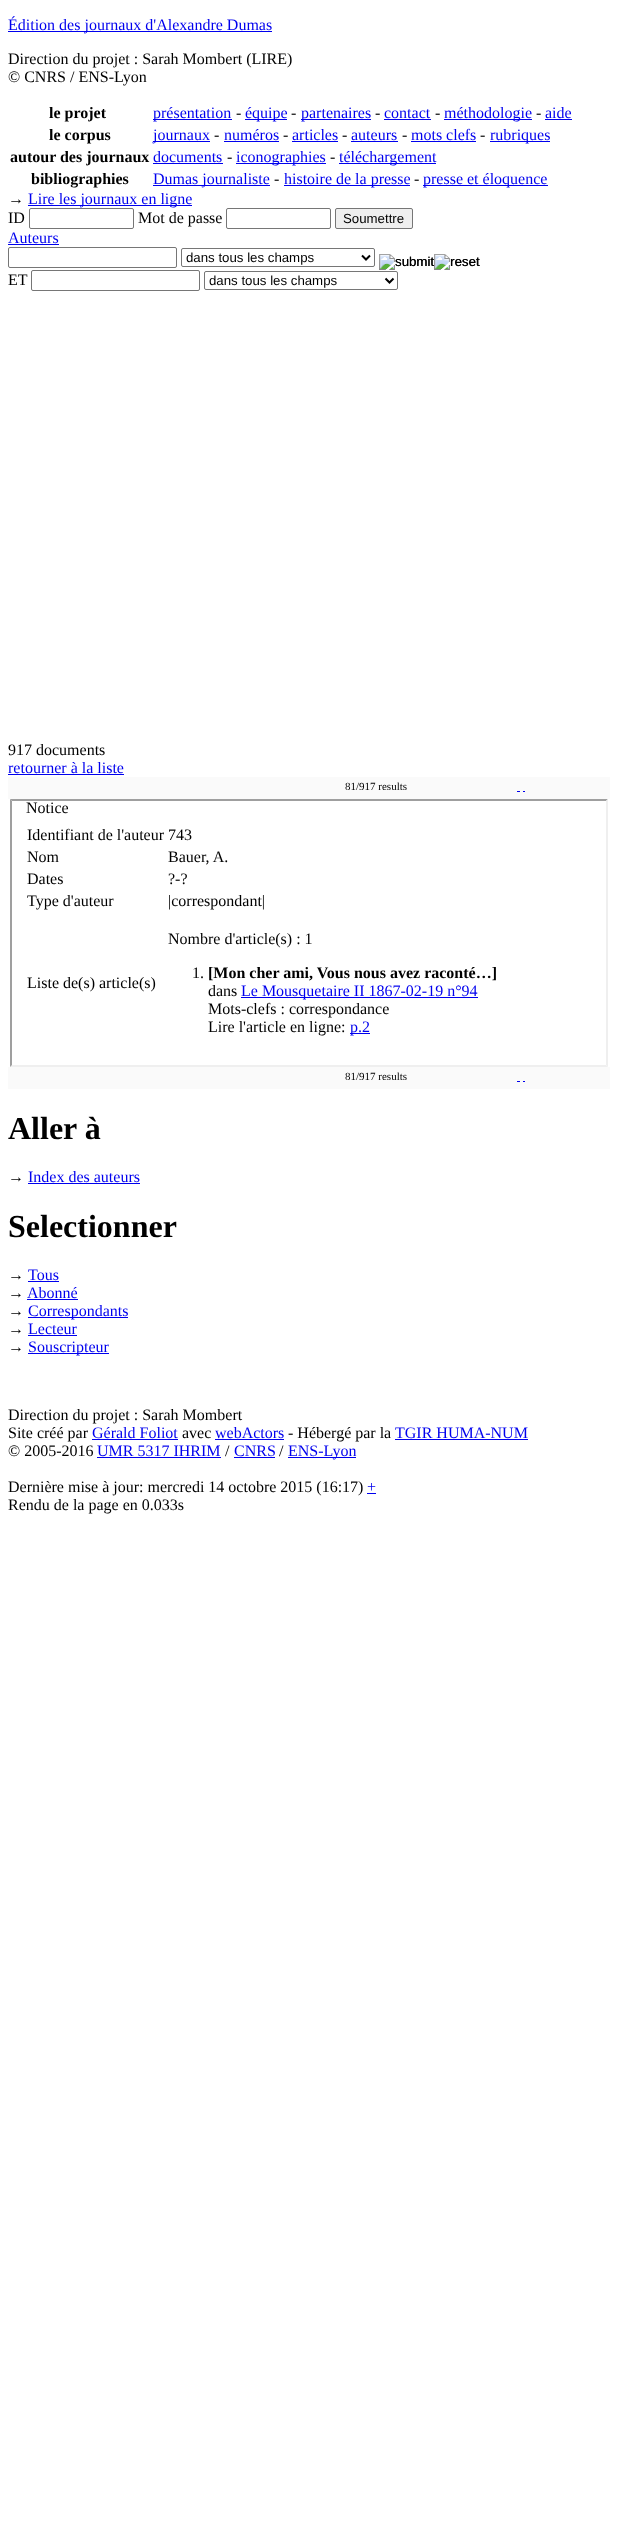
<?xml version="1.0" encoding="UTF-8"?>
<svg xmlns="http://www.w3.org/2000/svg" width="618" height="2536">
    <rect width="100%" height="100%" fill="#FFFFFF"/>
    <rect x="8" y="31" width="264" height="1" fill="#0000EE"/>
    <text x="8" y="30" font-family="Liberation Serif" font-size="16" fill="#0000EE">Édition des journaux d'Alexandre Dumas</text>
    <text font-family="Liberation Serif" font-size="16" fill="#000000">
        <tspan x="8" y="64">Direction du projet : Sarah Mombert (LIRE)</tspan>
        <tspan x="8" y="82">© CNRS / ENS-Lyon</tspan>
    </text>
    <text x="49" y="118" font-family="Liberation Serif" font-size="16" font-weight="700" fill="#000000">le projet</text>
    <rect x="153" y="119" width="79" height="1" fill="#0000EE"/>
    <text x="153" y="118" font-family="Liberation Serif" font-size="16" fill="#0000EE">présentation</text>
    <text x="236" y="118" font-family="Liberation Serif" font-size="16" fill="#000000">-</text>
    <rect x="245" y="119" width="42" height="1" fill="#0000EE"/>
    <text x="245" y="118" font-family="Liberation Serif" font-size="16" fill="#0000EE">équipe</text>
    <text x="291" y="118" font-family="Liberation Serif" font-size="16" fill="#000000">-</text>
    <rect x="301" y="119" width="70" height="1" fill="#0000EE"/>
    <text x="301" y="118" font-family="Liberation Serif" font-size="16" fill="#0000EE">partenaires</text>
    <text x="375" y="118" font-family="Liberation Serif" font-size="16" fill="#000000">-</text>
    <text x="384" y="118" font-family="Liberation Serif" font-size="16" fill="#0000EE">contact</text>
    <rect x="384" y="119" width="47" height="1" fill="#0000EE"/>
    <text x="435" y="118" font-family="Liberation Serif" font-size="16" fill="#000000">-</text>
    <rect x="444" y="119" width="88" height="1" fill="#0000EE"/>
    <text x="444" y="118" font-family="Liberation Serif" font-size="16" fill="#0000EE">méthodologie</text>
    <text x="536" y="118" font-family="Liberation Serif" font-size="16" fill="#000000">-</text>
    <text x="545" y="118" font-family="Liberation Serif" font-size="16" fill="#0000EE">aide</text>
    <rect x="545" y="119" width="27" height="1" fill="#0000EE"/>
    <text x="49" y="140" font-family="Liberation Serif" font-size="16" font-weight="700" fill="#000000">le corpus</text>
    <rect x="153" y="141" width="57" height="1" fill="#0000EE"/>
    <text x="153" y="140" font-family="Liberation Serif" font-size="16" fill="#0000EE">journaux</text>
    <text x="214" y="140" font-family="Liberation Serif" font-size="16" fill="#000000">-</text>
    <text x="224" y="140" font-family="Liberation Serif" font-size="16" fill="#0000EE">numéros</text>
    <rect x="224" y="141" width="55" height="1" fill="#0000EE"/>
    <text x="283" y="140" font-family="Liberation Serif" font-size="16" fill="#000000">-</text>
    <text x="292" y="140" font-family="Liberation Serif" font-size="16" fill="#0000EE">articles</text>
    <rect x="292" y="141" width="46" height="1" fill="#0000EE"/>
    <text x="342" y="140" font-family="Liberation Serif" font-size="16" fill="#000000">-</text>
    <text x="351" y="140" font-family="Liberation Serif" font-size="16" fill="#0000EE">auteurs</text>
    <rect x="351" y="141" width="47" height="1" fill="#0000EE"/>
    <text x="402" y="140" font-family="Liberation Serif" font-size="16" fill="#000000">-</text>
    <text x="411" y="140" font-family="Liberation Serif" font-size="16" fill="#0000EE">mots clefs</text>
    <rect x="411" y="141" width="65" height="1" fill="#0000EE"/>
    <text x="480" y="140" font-family="Liberation Serif" font-size="16" fill="#000000">-</text>
    <rect x="490" y="141" width="60" height="1" fill="#0000EE"/>
    <text x="490" y="140" font-family="Liberation Serif" font-size="16" fill="#0000EE">rubriques</text>
    <text x="10" y="162" font-family="Liberation Serif" font-size="16" font-weight="700" fill="#000000">autour des journaux</text>
    <text x="153" y="162" font-family="Liberation Serif" font-size="16" fill="#0000EE">documents</text>
    <rect x="153" y="163" width="70" height="1" fill="#0000EE"/>
    <text x="227" y="162" font-family="Liberation Serif" font-size="16" fill="#000000">-</text>
    <rect x="236" y="163" width="90" height="1" fill="#0000EE"/>
    <text x="236" y="162" font-family="Liberation Serif" font-size="16" fill="#0000EE">iconographies</text>
    <text x="330" y="162" font-family="Liberation Serif" font-size="16" fill="#000000">-</text>
    <rect x="339" y="163" width="97" height="1" fill="#0000EE"/>
    <text x="339" y="162" font-family="Liberation Serif" font-size="16" fill="#0000EE">téléchargement</text>
    <text x="31" y="184" font-family="Liberation Serif" font-size="16" font-weight="700" fill="#000000">bibliographies</text>
    <rect x="153" y="185" width="117" height="1" fill="#0000EE"/>
    <text x="153" y="184" font-family="Liberation Serif" font-size="16" fill="#0000EE">Dumas journaliste</text>
    <text x="274" y="184" font-family="Liberation Serif" font-size="16" fill="#000000">-</text>
    <rect x="284" y="185" width="126" height="1" fill="#0000EE"/>
    <text x="284" y="184" font-family="Liberation Serif" font-size="16" fill="#0000EE">histoire de la presse</text>
    <text x="414" y="184" font-family="Liberation Serif" font-size="16" fill="#000000">-</text>
    <rect x="423" y="185" width="125" height="1" fill="#0000EE"/>
    <text x="423" y="184" font-family="Liberation Serif" font-size="16" fill="#0000EE">presse et éloquence</text>
    <text x="8" y="204" font-family="Liberation Serif" font-size="16" fill="#000000">→</text>
    <rect x="28" y="205" width="164" height="1" fill="#0000EE"/>
    <text x="28" y="204" font-family="Liberation Serif" font-size="16" fill="#0000EE">Lire les journaux en ligne</text>
    <text x="8" y="223" font-family="Liberation Serif" font-size="16" fill="#000000">ID</text>
    <rect x="29.5" y="208.5" width="104" height="20" rx="1.5" fill="none" stroke="#767676"/>
    <text x="138" y="223" font-family="Liberation Serif" font-size="16" fill="#000000">Mot de passe</text>
    <rect x="226.5" y="208.5" width="104" height="20" rx="1.5" fill="none" stroke="#767676"/>
    <rect x="335.5" y="208.5" width="77" height="20" rx="1.5" fill="#EFEFEF" stroke="#767676"/>
    <text x="343" y="223" font-family="Liberation Sans" font-size="13.25" fill="#000000">Soumettre</text>
    <text x="8" y="243" font-family="Liberation Serif" font-size="16" fill="#0000EE">Auteurs</text>
    <rect x="8" y="244" width="51" height="1" fill="#0000EE"/>
    <rect x="8.5" y="247.5" width="168" height="20" rx="1.5" fill="none" stroke="#767676"/>
    <rect x="181.5" y="248.5" width="193" height="18" rx="1.5" fill="none" stroke="#767676"/>
    <path d="M 362 255.5 L 366 259.5 L 370 255.5" fill="none" stroke="#000000" stroke-width="2"/>
    <text x="186" y="262" font-family="Liberation Sans" font-size="13.25" fill="#000000">dans tous les champs</text>
    <image x="379" y="254" width="55" height="16" href="img_01.png"/>
    <text x="395" y="266" font-family="Liberation Sans" font-size="13.25" fill="#000000">submit</text>
    <image x="434" y="254" width="46" height="16" href="img_02.png"/>
    <text x="450" y="266" font-family="Liberation Sans" font-size="13.25" fill="#000000">reset</text>
    <text x="8" y="285" font-family="Liberation Serif" font-size="16" fill="#000000">ET</text>
    <rect x="31.5" y="270.5" width="168" height="20" rx="1.5" fill="none" stroke="#767676"/>
    <rect x="204.5" y="271.5" width="193" height="18" rx="1.5" fill="none" stroke="#767676"/>
    <path d="M 385.5 278.5 L 389.5 282.5 L 393.5 278.5" fill="none" stroke="#000000" stroke-width="2"/>
    <text x="209" y="285" font-family="Liberation Sans" font-size="13.25" fill="#000000">dans tous les champs</text>
    <text x="8" y="755" font-family="Liberation Serif" font-size="16" fill="#000000">917 documents</text>
    <text x="8" y="773" font-family="Liberation Serif" font-size="16" fill="#0000EE">retourner à la liste</text>
    <rect x="8" y="774" width="116" height="1" fill="#0000EE"/>
    <rect x="8" y="777" width="602" height="22" fill="#FAFAFA"/>
    <text x="345" y="790" font-family="Liberation Serif" font-size="11" fill="#000000">81/917 results</text>
    <rect x="517" y="791" width="3" height="1" fill="#0000EE"/>
    <rect x="523" y="791" width="2" height="1" fill="#0000EE"/>
    <path d="M 10 799 H 608 L 606 801 H 12 Z" fill="#9F9F9F"/>
    <path d="M 608 799 V 1067 L 606 1065 V 801 Z" fill="#EFEFEF"/>
    <path d="M 608 1067 H 10 L 12 1065 H 606 Z" fill="#EFEFEF"/>
    <path d="M 10 1067 V 799 L 12 801 V 1065 Z" fill="#9F9F9F"/>
    <text x="26" y="813" font-family="Liberation Serif" font-size="16" fill="#000000">Notice</text>
    <text font-family="Liberation Serif" font-size="16" fill="#000000">
        <tspan x="27" y="840">Identifiant de l'auteur 743</tspan>
        <tspan x="27" y="862">Nom</tspan>
    </text>
    <text x="168" y="862" font-family="Liberation Serif" font-size="16" fill="#000000">Bauer, A.</text>
    <text x="27" y="884" font-family="Liberation Serif" font-size="16" fill="#000000">Dates</text>
    <text x="168" y="884" font-family="Liberation Serif" font-size="16" fill="#000000">?-?</text>
    <text x="27" y="906" font-family="Liberation Serif" font-size="16" fill="#000000">Type d'auteur</text>
    <text x="168" y="906" font-family="Liberation Serif" font-size="16" fill="#000000">|correspondant|</text>
    <text x="27" y="988" font-family="Liberation Serif" font-size="16" fill="#000000">Liste de(s) article(s)</text>
    <text x="168" y="944" font-family="Liberation Serif" font-size="16" fill="#000000">Nombre d'article(s) : 1</text>
    <text x="192" y="978" font-family="Liberation Serif" font-size="16" fill="#000000">1.</text>
    <text x="208" y="978" font-family="Liberation Serif" font-size="16" font-weight="700" fill="#000000">[Mon cher ami, Vous nous avez raconté…]</text>
    <text x="208" y="996" font-family="Liberation Serif" font-size="16" fill="#000000">dans</text>
    <rect x="241" y="997" width="237" height="1" fill="#0000EE"/>
    <text x="241" y="996" font-family="Liberation Serif" font-size="16" fill="#0000EE">Le Mousquetaire II 1867-02-19 n°94</text>
    <text font-family="Liberation Serif" font-size="16" fill="#000000">
        <tspan x="208" y="1014">Mots-clefs : correspondance</tspan>
        <tspan x="208" y="1032">Lire l'article en ligne:</tspan>
    </text>
    <rect x="350" y="1033" width="20" height="1" fill="#0000EE"/>
    <text x="350" y="1032" font-family="Liberation Serif" font-size="16" fill="#0000EE">p.2</text>
    <rect x="8" y="1067" width="602" height="22" fill="#FAFAFA"/>
    <text x="345" y="1080" font-family="Liberation Serif" font-size="11" fill="#000000">81/917 results</text>
    <rect x="517" y="1081" width="3" height="1" fill="#0000EE"/>
    <rect x="523" y="1081" width="2" height="1" fill="#0000EE"/>
    <text x="8" y="1139" font-family="Liberation Serif" font-size="32" font-weight="700" fill="#000000">Aller à</text>
    <text x="8" y="1182" font-family="Liberation Serif" font-size="16" fill="#000000">→</text>
    <text x="28" y="1182" font-family="Liberation Serif" font-size="16" fill="#0000EE">Index des auteurs</text>
    <rect x="28" y="1183" width="112" height="1" fill="#0000EE"/>
    <text x="8" y="1237" font-family="Liberation Serif" font-size="32" font-weight="700" fill="#000000">Selectionner</text>
    <text x="8" y="1280" font-family="Liberation Serif" font-size="16" fill="#000000">→</text>
    <text x="28" y="1280" font-family="Liberation Serif" font-size="16" fill="#0000EE">Tous</text>
    <rect x="28" y="1281" width="31" height="1" fill="#0000EE"/>
    <text x="8" y="1298" font-family="Liberation Serif" font-size="16" fill="#000000">→</text>
    <text x="27" y="1298" font-family="Liberation Serif" font-size="16" fill="#0000EE">Abonné</text>
    <rect x="27" y="1299" width="51" height="1" fill="#0000EE"/>
    <text x="8" y="1316" font-family="Liberation Serif" font-size="16" fill="#000000">→</text>
    <rect x="28" y="1317" width="100" height="1" fill="#0000EE"/>
    <text x="28" y="1316" font-family="Liberation Serif" font-size="16" fill="#0000EE">Correspondants</text>
    <text x="8" y="1334" font-family="Liberation Serif" font-size="16" fill="#000000">→</text>
    <text x="28" y="1334" font-family="Liberation Serif" font-size="16" fill="#0000EE">Lecteur</text>
    <rect x="28" y="1335" width="49" height="1" fill="#0000EE"/>
    <text x="8" y="1352" font-family="Liberation Serif" font-size="16" fill="#000000">→</text>
    <rect x="28" y="1353" width="81" height="1" fill="#0000EE"/>
    <text x="28" y="1352" font-family="Liberation Serif" font-size="16" fill="#0000EE">Souscripteur</text>
    <text font-family="Liberation Serif" font-size="16" fill="#000000">
        <tspan x="8" y="1420">Direction du projet : Sarah Mombert</tspan>
        <tspan x="8" y="1438">Site créé par</tspan>
    </text>
    <text x="92" y="1438" font-family="Liberation Serif" font-size="16" fill="#0000EE">Gérald Foliot</text>
    <rect x="92" y="1439" width="86" height="1" fill="#0000EE"/>
    <text x="182" y="1438" font-family="Liberation Serif" font-size="16" fill="#000000">avec</text>
    <text x="215" y="1438" font-family="Liberation Serif" font-size="16" fill="#0000EE">webActors</text>
    <rect x="215" y="1439" width="69" height="1" fill="#0000EE"/>
    <text x="288" y="1438" font-family="Liberation Serif" font-size="16" fill="#000000">- Hébergé par la</text>
    <text x="395" y="1438" font-family="Liberation Serif" font-size="16" fill="#0000EE">TGIR HUMA-NUM</text>
    <rect x="395" y="1439" width="133" height="1" fill="#0000EE"/>
    <text x="8" y="1456" font-family="Liberation Serif" font-size="16" fill="#000000">© 2005-2016</text>
    <text x="97" y="1456" font-family="Liberation Serif" font-size="16" fill="#0000EE">UMR 5317 IHRIM</text>
    <rect x="97" y="1457" width="124" height="1" fill="#0000EE"/>
    <text x="225" y="1456" font-family="Liberation Serif" font-size="16" fill="#000000">/</text>
    <text x="234" y="1456" font-family="Liberation Serif" font-size="16" fill="#0000EE">CNRS</text>
    <rect x="234" y="1457" width="41" height="1" fill="#0000EE"/>
    <text x="279" y="1456" font-family="Liberation Serif" font-size="16" fill="#000000">/</text>
    <rect x="288" y="1457" width="68" height="1" fill="#0000EE"/>
    <text x="288" y="1456" font-family="Liberation Serif" font-size="16" fill="#0000EE">ENS-Lyon</text>
    <text x="8" y="1492" font-family="Liberation Serif" font-size="16" fill="#000000">Dernière mise à jour: mercredi 14 octobre 2015 (16:17)</text>
    <text x="367" y="1492" font-family="Liberation Serif" font-size="16" fill="#0000EE">+</text>
    <rect x="367" y="1493" width="9" height="1" fill="#0000EE"/>
    <text x="8" y="1510" font-family="Liberation Serif" font-size="16" fill="#000000">Rendu de la page en 0.033s</text>
</svg>
